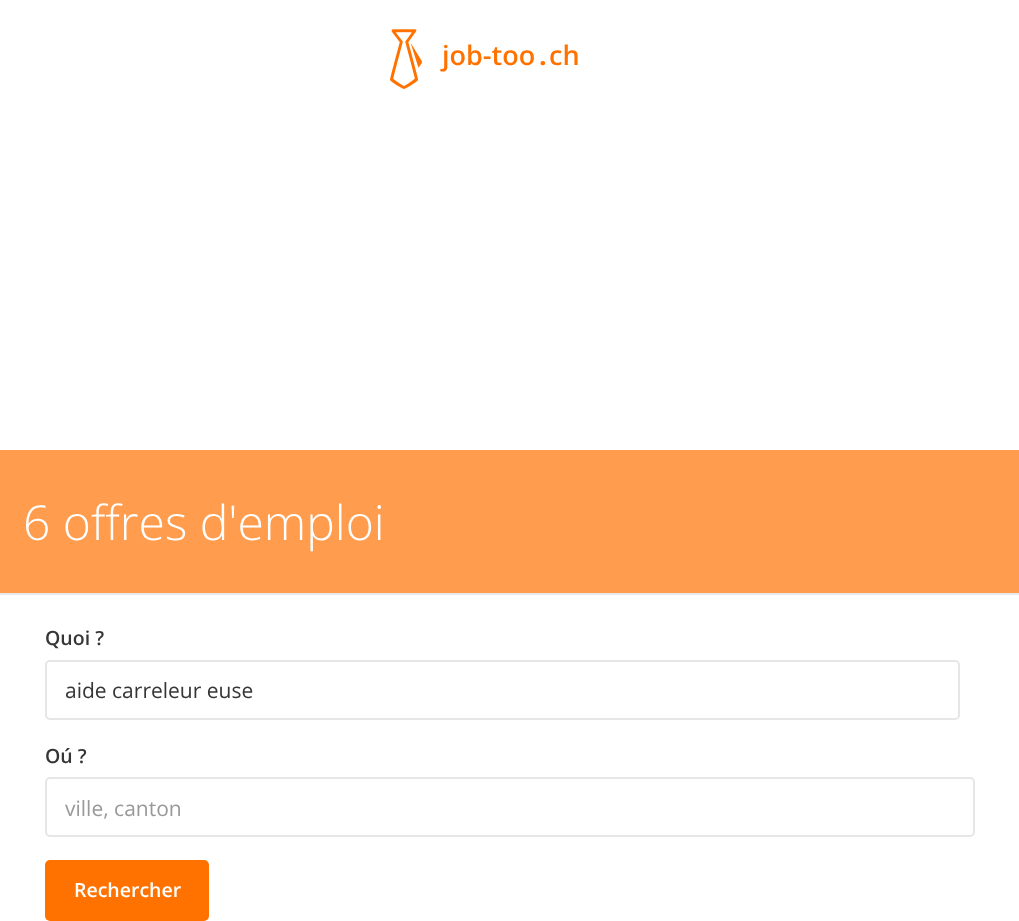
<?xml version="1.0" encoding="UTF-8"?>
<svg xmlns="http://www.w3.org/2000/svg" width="1019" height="921">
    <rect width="100%" height="100%" fill="#FFFFFF"/>
    <image x="390" y="29" width="32" height="60" href="img_01.png"/>
    <text x="442" y="65" font-family="Open Sans" font-size="27" font-weight="600" fill="#FF7200">job-too</text>
    <text x="539" y="65" font-family="Open Sans" font-size="27" font-weight="700" fill="#FF7200">.</text>
    <text x="549" y="65" font-family="Open Sans" font-size="27" font-weight="600" fill="#FF7200">ch</text>
    <rect x="0" y="450" width="1019" height="143" fill="#FF9C4D"/>
    <rect x="0" y="593" width="1019" height="2" fill="#E9E9E9"/>
    <text x="23" y="540" font-family="Open Sans" font-size="48" font-weight="300" fill="#FFFFFF">6 offres d'emploi</text>
    <text x="45" y="645" font-family="Open Sans" font-size="19.5" font-weight="600" fill="#363636">Quoi ?</text>
    <rect x="46" y="661" width="913" height="58" rx="4" fill="none" stroke="#E6E6E6" stroke-width="2"/>
    <text x="65" y="698" font-family="Open Sans" font-size="21" fill="#363636">aide carreleur euse</text>
    <text x="45" y="763" font-family="Open Sans" font-size="19.5" font-weight="600" fill="#363636">Oú ?</text>
    <rect x="46" y="778" width="928" height="58" rx="4" fill="none" stroke="#E6E6E6" stroke-width="2"/>
    <text x="65" y="816" font-family="Open Sans" font-size="21" fill="#999999">ville, canton</text>
    <rect x="45" y="860" width="164" height="61" rx="5" fill="#FF7200"/>
    <text x="74" y="897" font-family="Open Sans" font-size="19.5" font-weight="600" fill="#FFFFFF">Rechercher</text>
</svg>
